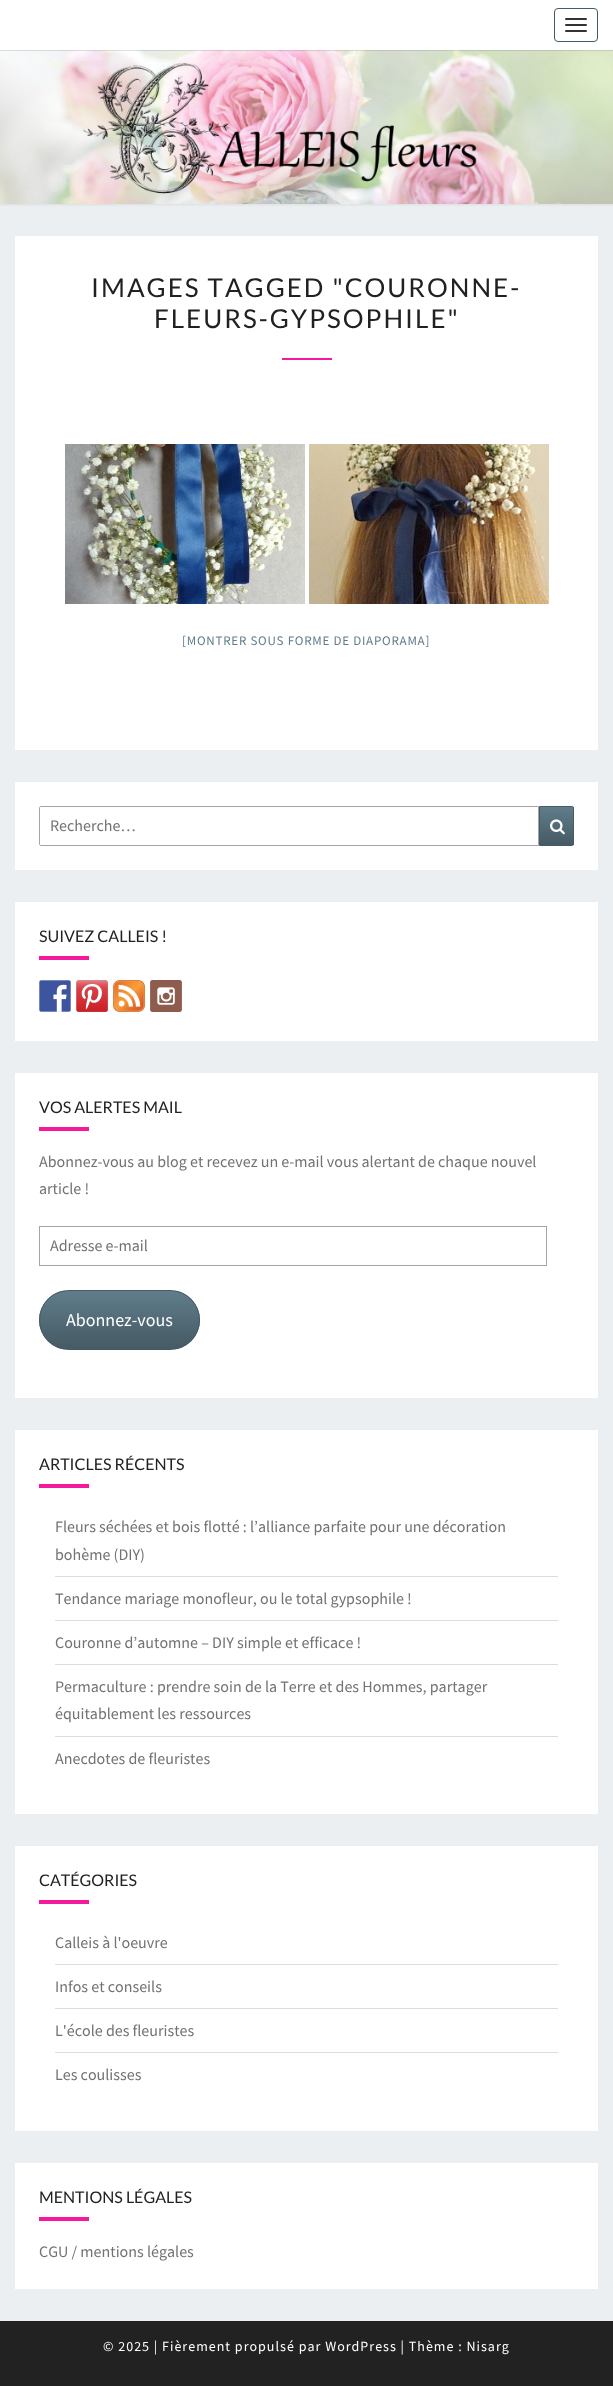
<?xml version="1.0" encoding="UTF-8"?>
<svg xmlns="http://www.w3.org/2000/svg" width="613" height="2386">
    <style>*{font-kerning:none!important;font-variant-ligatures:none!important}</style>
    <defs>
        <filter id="blur1" x="-50%" y="-200%" width="200%" height="500%"><feGaussianBlur stdDeviation="1"/></filter>
        <filter id="blur2" x="-50%" y="-200%" width="200%" height="500%"><feGaussianBlur stdDeviation="0.5"/></filter>
        <linearGradient id="g1" gradientUnits="userSpaceOnUse" x1="557" y1="807" x2="557" y2="845"><stop offset="0" stop-color="#607D8B"/><stop offset="1" stop-color="#455A64"/></linearGradient>
        <clipPath id="clip1"><rect x="39" y="1290" width="161" height="60" rx="30"/></clipPath>
        <linearGradient id="g2" gradientUnits="userSpaceOnUse" x1="120" y1="1291" x2="120" y2="1349"><stop offset="0" stop-color="#607D8B"/><stop offset="1" stop-color="#455A64"/></linearGradient>
    </defs>
    <rect width="100%" height="100%" fill="#ECEFF1"/>
    <rect x="-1" y="33" width="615" height="172" fill="#B6B6B6" fill-opacity="0.3" filter="url(#blur1)"/>
    <image x="0" y="50" width="613" height="154" href="img_01.png"/>
    <rect x="0" y="1" width="613" height="50" fill="#646464" fill-opacity="0.2" filter="url(#blur2)"/>
    <rect x="0" y="0" width="613" height="50" fill="#FFFFFF"/>
    <rect x="554.5" y="8.5" width="43" height="33" rx="3.5" fill="none" stroke="#455A64"/>
    <rect x="565" y="18" width="22" height="2" rx="1" fill="#333333"/>
    <rect x="565" y="24" width="22" height="2" rx="1" fill="#333333"/>
    <rect x="565" y="30" width="22" height="2" rx="1" fill="#333333"/>
    <rect x="15" y="236" width="583" height="514" fill="#FFFFFF"/>
    <text x="91" y="297" font-family="Lato" font-size="26" letter-spacing="2" fill="#212121">IMAGES TAGGED "COURONNE-</text>
    <text x="154" y="328" font-family="Lato" font-size="26" letter-spacing="2" fill="#212121">FLEURS-GYPSOPHILE"</text>
    <rect x="282" y="358" width="50" height="2" fill="#F41A9D"/>
    <image x="65" y="444" width="240" height="160" href="img_02.png"/>
    <image x="309" y="444" width="240" height="160" href="img_03.png"/>
    <text x="182" y="645" font-family="Source Sans Pro" font-size="13" letter-spacing="0.75" fill="#607D8B">[MONTRER SOUS FORME DE DIAPORAMA]</text>
    <rect x="15" y="782" width="583" height="88" fill="#FFFFFF"/>
    <path d="M 41 806.5 H 538.5 V 845.5 H 41 C 40 845.5 39.5 845 39.5 844 V 808 C 39.5 807 40 806.5 41 806.5 Z" fill="none" stroke="#AAA1A8"/>
    <text x="50" y="831" font-family="Source Sans Pro" font-size="16" fill="#727272">Recherche…</text>
    <rect x="540" y="807" width="34" height="38" fill="url(#g1)"/>
    <path d="M 539.5 806.5 H 572 C 573 806.5 573.5 807 573.5 808 V 844 C 573.5 845 573 845.5 572 845.5 H 539.5 Z" fill="none" stroke="#455A64"/>
    <image x="550" y="819" width="15" height="16" href="img_04.png"/>
    <rect x="15" y="902" width="583" height="139" fill="#FFFFFF"/>
    <text x="39" y="942" font-family="Lato" font-size="16" fill="#212121">SUIVEZ CALLEIS !</text>
    <rect x="39" y="956" width="50" height="4" fill="#F41A9D"/>
    <image x="39" y="980" width="32" height="32" href="img_05.png"/>
    <image x="76" y="980" width="32" height="32" href="img_06.png"/>
    <image x="113" y="980" width="32" height="32" href="img_07.png"/>
    <image x="150" y="980" width="32" height="32" href="img_08.png"/>
    <rect x="15" y="1073" width="583" height="325" fill="#FFFFFF"/>
    <text x="39" y="1113" font-family="Lato" font-size="16" fill="#212121">VOS ALERTES MAIL</text>
    <rect x="39" y="1127" width="50" height="4" fill="#F41A9D"/>
    <text font-family="Source Sans Pro" font-size="16" fill="#727272">
        <tspan x="39" y="1167">Abonnez-vous au blog et recevez un e-mail vous alertant de chaque nouvel</tspan>
        <tspan x="39" y="1194">article !</tspan>
    </text>
    <rect x="39.5" y="1226.5" width="507" height="39" fill="none" stroke="#AAA1A8"/>
    <text x="50" y="1251" font-family="Source Sans Pro" font-size="16" fill="#727272">Adresse e-mail</text>
    <g clip-path="url(#clip1)">
        <rect x="39" y="1291" width="161" height="58" fill="url(#g2)"/>
    </g>
    <rect x="39.5" y="1290.5" width="160" height="59" rx="29.5" fill="none" stroke="#455A64"/>
    <text x="66" y="1326" font-family="Source Sans Pro" font-size="18" fill="#FFFFFF">Abonnez-vous</text>
    <rect x="15" y="1430" width="583" height="384" fill="#FFFFFF"/>
    <text x="39" y="1470" font-family="Lato" font-size="16" fill="#212121">ARTICLES RÉCENTS</text>
    <rect x="39" y="1484" width="50" height="4" fill="#F41A9D"/>
    <rect x="55" y="1576" width="503" height="1" fill="#DDDDDD"/>
    <text font-family="Source Sans Pro" font-size="16" fill="#727272">
        <tspan x="55" y="1532">Fleurs séchées et bois flotté : l’alliance parfaite pour une décoration</tspan>
        <tspan x="55" y="1560">bohème (DIY)</tspan>
    </text>
    <rect x="55" y="1620" width="503" height="1" fill="#DDDDDD"/>
    <text x="55" y="1604" font-family="Source Sans Pro" font-size="16" fill="#727272">Tendance mariage monofleur, ou le total gypsophile !</text>
    <rect x="55" y="1664" width="503" height="1" fill="#DDDDDD"/>
    <text x="55" y="1648" font-family="Source Sans Pro" font-size="16" fill="#727272">Couronne d’automne – DIY simple et efficace !</text>
    <rect x="55" y="1736" width="503" height="1" fill="#DDDDDD"/>
    <text font-family="Source Sans Pro" font-size="16" fill="#727272">
        <tspan x="55" y="1692">Permaculture : prendre soin de la Terre et des Hommes, partager</tspan>
        <tspan x="55" y="1719">équitablement les ressources</tspan>
    </text>
    <text x="55" y="1764" font-family="Source Sans Pro" font-size="16" fill="#727272">Anecdotes de fleuristes </text>
    <rect x="15" y="1846" width="583" height="285" fill="#FFFFFF"/>
    <text x="39" y="1886" font-family="Lato" font-size="16" fill="#212121">CATÉGORIES</text>
    <rect x="39" y="1900" width="50" height="4" fill="#F41A9D"/>
    <rect x="55" y="1964" width="503" height="1" fill="#DDDDDD"/>
    <text x="55" y="1948" font-family="Source Sans Pro" font-size="16" fill="#727272">Calleis à l'oeuvre</text>
    <rect x="55" y="2008" width="503" height="1" fill="#DDDDDD"/>
    <text x="55" y="1992" font-family="Source Sans Pro" font-size="16" fill="#727272">Infos et conseils</text>
    <rect x="55" y="2052" width="503" height="1" fill="#DDDDDD"/>
    <text x="55" y="2036" font-family="Source Sans Pro" font-size="16" fill="#727272">L'école des fleuristes</text>
    <text x="55" y="2080" font-family="Source Sans Pro" font-size="16" fill="#727272">Les coulisses</text>
    <rect x="15" y="2163" width="583" height="126" fill="#FFFFFF"/>
    <text x="39" y="2203" font-family="Lato" font-size="16" fill="#212121">MENTIONS LÉGALES</text>
    <rect x="39" y="2217" width="50" height="4" fill="#F41A9D"/>
    <text x="39" y="2257" font-family="Source Sans Pro" font-size="16" fill="#727272">CGU / mentions légales</text>
    <rect x="0" y="2321" width="613" height="65" fill="#222222"/>
    <text x="103" y="2351" font-family="Source Sans Pro" font-size="14" letter-spacing="1" fill="#FFFFFF">© 2025 | Fièrement propulsé par WordPress | Thème : Nisarg</text>
</svg>
